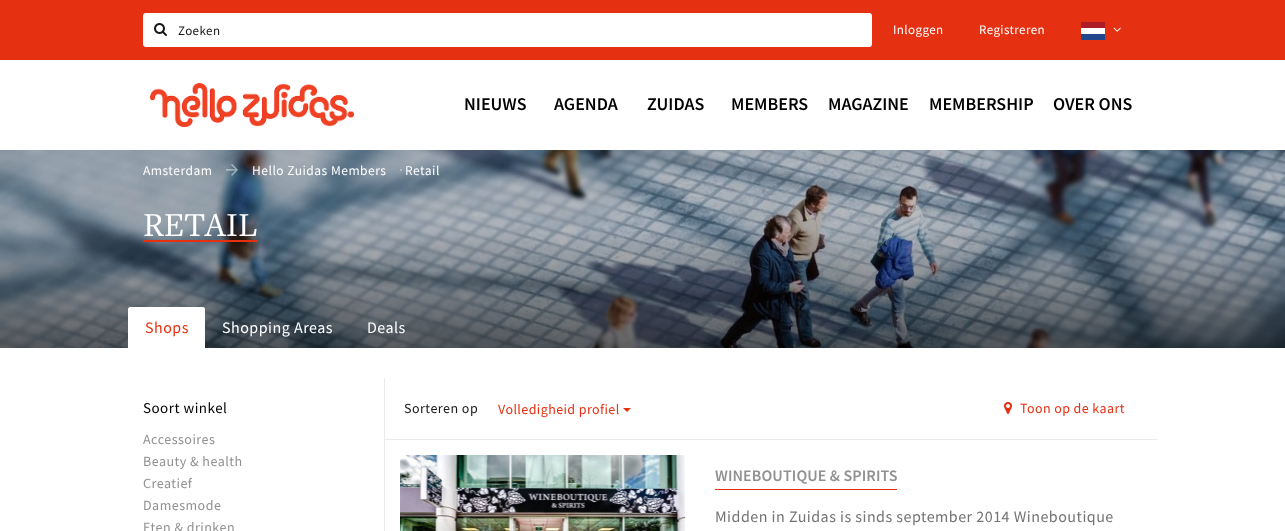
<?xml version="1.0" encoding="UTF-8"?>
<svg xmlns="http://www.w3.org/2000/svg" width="1285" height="531">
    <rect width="100%" height="100%" fill="#FFFFFF"/>
    <rect x="0" y="0" width="1285" height="60" fill="#E53012"/>
    <rect x="143" y="13" width="729" height="34" rx="3" fill="#FFFFFF"/>
    <image x="154" y="23" width="13" height="13" href="img_01.png"/>
    <text x="178" y="35" font-family="Source Sans Pro" font-size="13" letter-spacing="0.4" fill="#191919">Zoeken</text>
    <text x="893" y="34" font-family="Source Sans Pro" font-size="13" letter-spacing="0.4" fill="#FFFFFF">Inloggen</text>
    <text x="979" y="34" font-family="Source Sans Pro" font-size="13" letter-spacing="0.4" fill="#FFFFFF">Registreren</text>
    <rect x="1081" y="22" width="24" height="6" fill="#AE1C28"/>
    <rect x="1081" y="28" width="24" height="6" fill="#FFFFFF"/>
    <image x="1113" y="27" width="8" height="5" href="img_02.png"/>
    <rect x="1081" y="34" width="24" height="6" fill="#21468B"/>
    <image x="150" y="83" width="204" height="44" href="img_03.png"/>
    <text x="464" y="110" font-family="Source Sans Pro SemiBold" font-size="18" font-weight="600" fill="#000000">NIEUWS</text>
    <text x="554" y="110" font-family="Source Sans Pro SemiBold" font-size="18" font-weight="600" fill="#000000">AGENDA</text>
    <text x="647" y="110" font-family="Source Sans Pro SemiBold" font-size="18" font-weight="600" fill="#000000">ZUIDAS</text>
    <text x="731" y="110" font-family="Source Sans Pro SemiBold" font-size="18" font-weight="600" fill="#000000">MEMBERS</text>
    <text x="828" y="110" font-family="Source Sans Pro SemiBold" font-size="18" font-weight="600" fill="#000000">MAGAZINE</text>
    <text x="929" y="110" font-family="Source Sans Pro SemiBold" font-size="18" font-weight="600" fill="#000000">MEMBERSHIP</text>
    <text x="1053" y="110" font-family="Source Sans Pro SemiBold" font-size="18" font-weight="600" fill="#000000">OVER ONS</text>
    <image x="0" y="150" width="1285" height="198" href="img_04.png"/>
    <text x="143" y="175" font-family="Source Sans Pro" font-size="13.5" letter-spacing="0.48" fill="#FFFFFF">Amsterdam</text>
    <image x="226" y="164" width="12" height="12" href="img_05.png"/>
    <text x="252" y="175" font-family="Source Sans Pro" font-size="13.5" letter-spacing="0.48" fill="#FFFFFF">Hello Zuidas Members</text>
    <image x="400" y="169" width="2" height="2" href="img_06.png"/>
    <text x="405" y="175" font-family="Source Sans Pro" font-size="13.5" letter-spacing="0.48" fill="#FFFFFF">Retail</text>
    <rect x="143" y="240" width="115" height="2" fill="#E53012"/>
    <text x="143" y="236" font-family="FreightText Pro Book" font-size="35" fill="#FFFFFF">RETAIL</text>
    <path d="M 130 307 H 203 C 204 307 205 308 205 309 V 348 H 128 V 309 C 128 308 129 307 130 307 Z" fill="#FFFFFF"/>
    <text x="145" y="333" font-family="Source Sans Pro" font-size="16" letter-spacing="0.48" fill="#E53012">Shops</text>
    <text x="222" y="333" font-family="Source Sans Pro" font-size="16" letter-spacing="0.48" fill="#FFFFFF">Shopping Areas</text>
    <text x="367" y="333" font-family="Source Sans Pro" font-size="16" letter-spacing="0.48" fill="#FFFFFF">Deals</text>
    <rect x="384" y="378" width="1" height="153" fill="#EBEBEB"/>
    <text x="143" y="413" font-family="Source Sans Pro" font-size="15" letter-spacing="0.48" fill="#000000">Soort winkel</text>
    <text font-family="Source Sans Pro" font-size="14" letter-spacing="0.48" fill="#919191">
        <tspan x="143" y="444">Accessoires</tspan>
        <tspan x="143" y="466">Beauty &amp; health</tspan>
        <tspan x="143" y="488">Creatief</tspan>
        <tspan x="143" y="510">Damesmode</tspan>
        <tspan x="143" y="532">Eten &amp; drinken</tspan>
    </text>
    <rect x="385" y="439" width="772" height="1" fill="#EBEBEB"/>
    <text x="404" y="413" font-family="Source Sans Pro" font-size="14" letter-spacing="0.48" fill="#191919">Sorteren op</text>
    <text x="498" y="414" font-family="Source Sans Pro" font-size="14" letter-spacing="0.4" fill="#E53012">Volledigheid profiel</text>
    <path d="M 623 408 H 631 L 627 412 Z" fill="#E53012"/>
    <image x="1004" y="402" width="8" height="12" href="img_07.png"/>
    <text x="1020" y="413" font-family="Source Sans Pro" font-size="14" letter-spacing="0.4" fill="#E53012">Toon op de kaart</text>
    <image x="400" y="455" width="285" height="76" href="img_08.png"/>
    <rect x="715" y="489" width="182" height="1" fill="#E53012"/>
    <text x="715" y="481" font-family="Source Sans Pro SemiBold" font-size="16" font-weight="600" letter-spacing="0.1" fill="#919191">WINEBOUTIQUE &amp; SPIRITS</text>
    <text x="715" y="522" font-family="Source Sans Pro" font-size="16" letter-spacing="0.48" fill="#747474">Midden in Zuidas is sinds september 2014 Wineboutique</text>
</svg>
